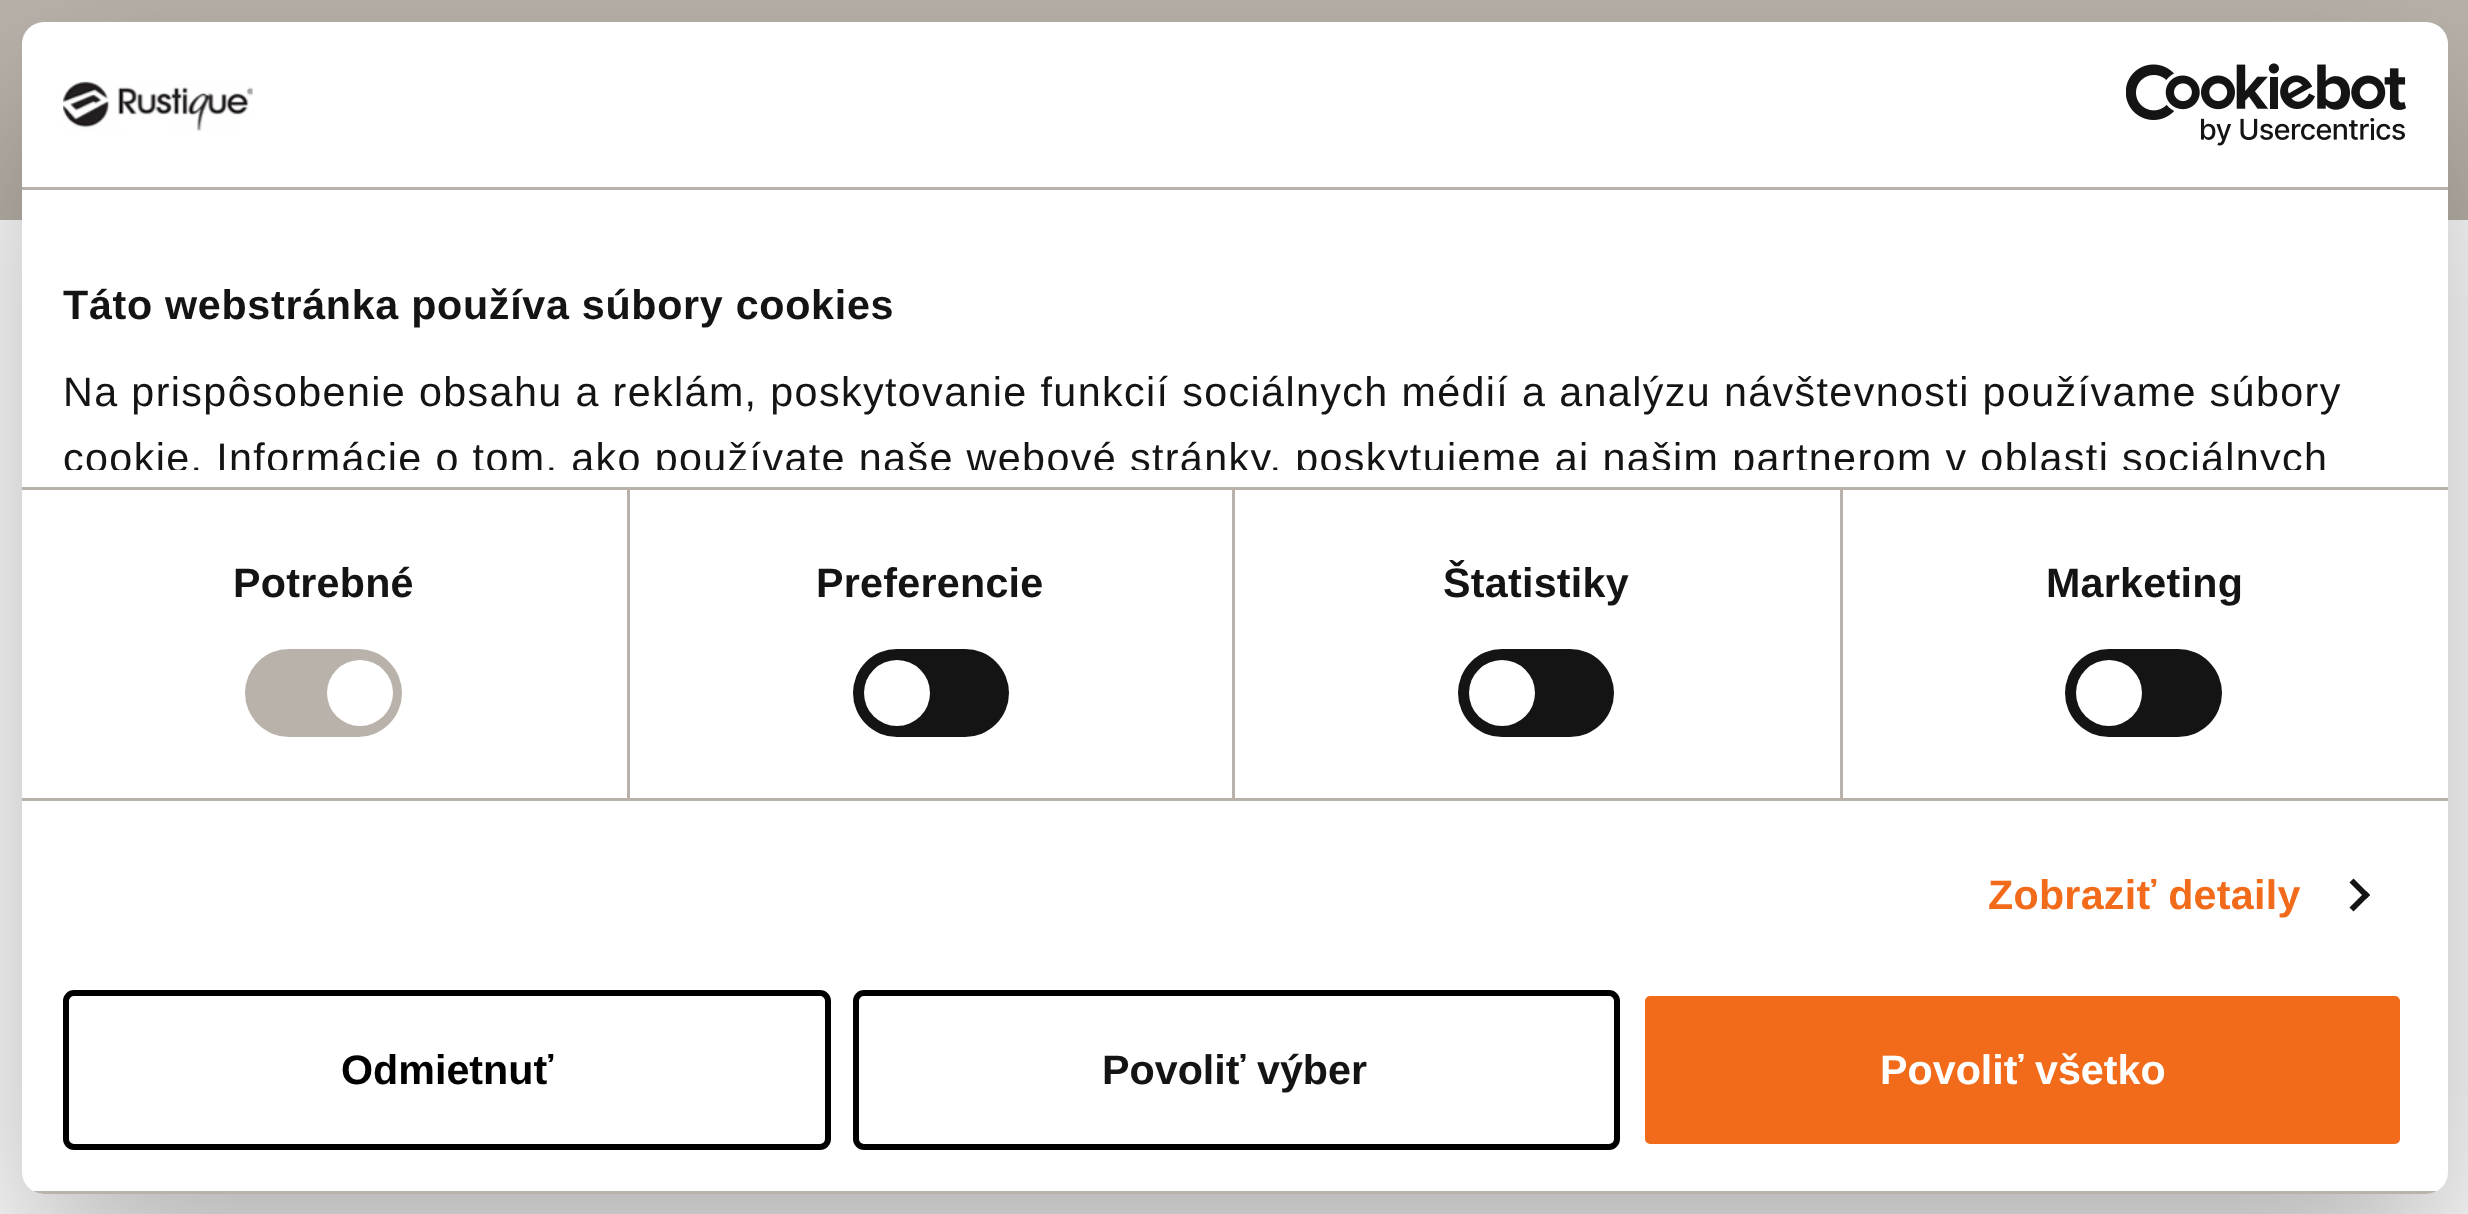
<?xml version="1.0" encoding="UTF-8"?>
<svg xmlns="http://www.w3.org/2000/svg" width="2468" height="1214">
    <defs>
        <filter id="blur1" x="-50%" y="-200%" width="200%" height="500%"><feGaussianBlur stdDeviation="93.5"/></filter>
        <clipPath id="clip1"><rect x="39" y="206" width="2392" height="264"/></clipPath>
        <clipPath id="clip2"><rect x="22" y="22" width="2426" height="1172" rx="22"/></clipPath>
    </defs>
    <rect width="100%" height="100%" fill="#FFFFFF"/>
    <rect x="0" y="0" width="2468" height="220" fill="#B9B2AA"/>
    <rect x="22" y="110" width="2426" height="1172" rx="22" fill="#000000" fill-opacity="0.3" filter="url(#blur1)"/>
    <rect x="22" y="22" width="2426" height="1172" rx="22" fill="#FFFFFF"/>
    <rect x="22" y="187" width="2426" height="3" fill="#B9B2AA"/>
    <image x="63" y="81" width="190" height="51" href="img_01.png"/>
    <image x="2126" y="63" width="280" height="83" href="img_02.png"/>
    <rect x="22" y="487" width="2426" height="3" fill="#B9B2AA"/>
    <text x="63" y="319" font-family="Liberation Sans" font-size="41.25" font-weight="700" letter-spacing="0.7" fill="#141414">Táto webstránka používa súbory cookies</text>
    <text x="63" y="406" font-family="Liberation Sans" font-size="41.25" letter-spacing="1.38" fill="#141414">Na prispôsobenie obsahu a reklám, poskytovanie funkcií sociálnych médií a analýzu návštevnosti používame súbory</text>
    <g clip-path="url(#clip1)">
        <text x="63" y="472" font-family="Liberation Sans" font-size="41.25" letter-spacing="1.38" fill="#141414">cookie. Informácie o tom, ako používate naše webové stránky, poskytujeme aj našim partnerom v oblasti sociálnych</text>
    </g>
    <rect x="22" y="798" width="2426" height="3" fill="#B9B2AA"/>
    <rect x="627" y="490" width="3" height="308" fill="#B9B2AA"/>
    <text x="233" y="597" font-family="Liberation Sans" font-size="41.25" font-weight="700" letter-spacing="0.25" fill="#141414">Potrebné</text>
    <rect x="245" y="649" width="157" height="88" rx="44" fill="#B9B2AA"/>
    <circle cx="360" cy="693" r="33" fill="#FFFFFF"/>
    <rect x="1232" y="490" width="3" height="308" fill="#B9B2AA"/>
    <text x="816" y="597" font-family="Liberation Sans" font-size="41.25" font-weight="700" letter-spacing="0.25" fill="#141414">Preferencie</text>
    <rect x="853" y="649" width="156" height="88" rx="44" fill="#141414"/>
    <circle cx="897" cy="693" r="33" fill="#FFFFFF"/>
    <rect x="1840" y="490" width="3" height="308" fill="#B9B2AA"/>
    <text x="1443" y="597" font-family="Liberation Sans" font-size="41.25" font-weight="700" letter-spacing="0.25" fill="#141414">Štatistiky</text>
    <rect x="1458" y="649" width="156" height="88" rx="44" fill="#141414"/>
    <circle cx="1502" cy="693" r="33" fill="#FFFFFF"/>
    <text x="2046" y="597" font-family="Liberation Sans" font-size="41.25" font-weight="700" letter-spacing="0.25" fill="#141414">Marketing</text>
    <rect x="2065" y="649" width="157" height="88" rx="44" fill="#141414"/>
    <circle cx="2109" cy="693" r="33" fill="#FFFFFF"/>
    <text x="1988" y="909" font-family="Liberation Sans" font-size="41.25" font-weight="700" letter-spacing="0.25" fill="#F16B1B">Zobraziť detaily</text>
    <path d="M 2353.5 878.5 L 2370 895 L 2366 899 L 2349.5 882.5 Z" fill="#141414"/>
    <path d="M 2366 891 L 2370 895 L 2353.5 911.5 L 2349.5 907.5 Z" fill="#141414"/>
    <g clip-path="url(#clip2)">
        <rect x="33" y="1191" width="2404" height="3" fill="#B9B2AA"/>
    </g>
    <rect x="66" y="993" width="762" height="154" rx="8" fill="none" stroke="#000000" stroke-width="6"/>
    <text x="341" y="1084" font-family="Liberation Sans" font-size="41.25" font-weight="700" fill="#000000">Odmietnuť</text>
    <rect x="856" y="993" width="761" height="154" rx="8" fill="none" stroke="#000000" stroke-width="6"/>
    <text x="1102" y="1084" font-family="Liberation Sans" font-size="41.25" font-weight="700" fill="#141414">Povoliť výber</text>
    <rect x="1642" y="993" width="761" height="154" rx="8" fill="#F16B1B" stroke="#FFFFFF" stroke-width="6"/>
    <text x="1880" y="1084" font-family="Liberation Sans" font-size="41.25" font-weight="700" fill="#FFFFFF">Povoliť všetko</text>
</svg>
